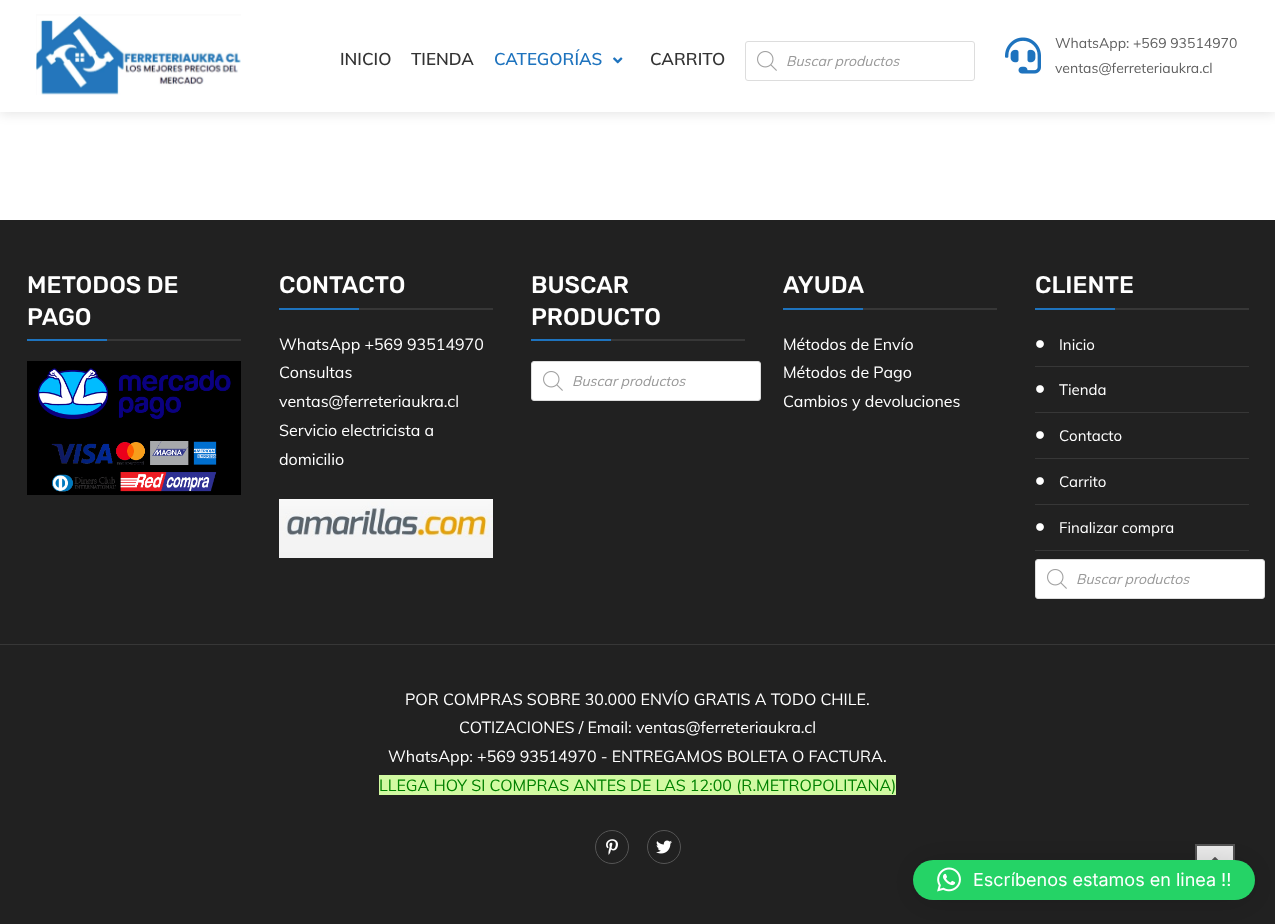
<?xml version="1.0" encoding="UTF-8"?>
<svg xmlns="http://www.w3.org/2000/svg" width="1275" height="924">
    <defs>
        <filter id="blur1" x="-50%" y="-200%" width="200%" height="500%"><feGaussianBlur stdDeviation="6"/></filter>
        <filter id="blur2" x="-50%" y="-200%" width="200%" height="500%"><feGaussianBlur stdDeviation="16"/></filter>
    </defs>
    <rect width="100%" height="100%" fill="#FFFFFF"/>
    <rect x="0" y="2" width="1275" height="112" fill="#000000" fill-opacity="0.1" filter="url(#blur1)"/>
    <rect x="0" y="0" width="1275" height="112" fill="#FFFFFF"/>
    <image x="36" y="14" width="205" height="81" href="img_01.png"/>
    <text x="340" y="65" font-family="Muli" font-size="17" font-weight="600" fill="#333333">INICIO</text>
    <text x="411" y="65" font-family="Muli" font-size="17" font-weight="600" fill="#333333">TIENDA</text>
    <text x="494" y="65" font-family="Muli" font-size="17" font-weight="600" fill="#1E73BE">CATEGORÍAS</text>
    <image x="613" y="57" width="10" height="7" href="img_02.png"/>
    <text x="650" y="65" font-family="Muli" font-size="17" font-weight="600" fill="#333333">CARRITO</text>
    <rect x="745.5" y="41.5" width="229" height="39" rx="2.5" fill="none" stroke="#DDDDDD"/>
    <image x="757" y="51" width="20" height="20" href="img_03.png"/>
    <text x="786" y="66" font-family="Muli" font-size="14" font-style="italic" fill="#999999">Buscar productos</text>
    <image x="1005" y="37" width="36" height="37" href="img_04.png"/>
    <text font-family="Muli" font-size="14" fill="#606060">
        <tspan x="1055" y="48">WhatsApp: +569 93514970</tspan>
        <tspan x="1055" y="73">ventas@ferreteriaukra.cl</tspan>
    </text>
    <rect x="0" y="220" width="1275" height="704" fill="#212121"/>
    <rect x="107" y="339" width="134" height="2" fill="#373737"/>
    <text font-family="Rubik" font-size="24" font-weight="500" fill="#FFFFFF">
        <tspan x="27" y="293">METODOS DE</tspan>
        <tspan x="27" y="325">PAGO</tspan>
    </text>
    <rect x="27" y="339" width="80" height="2" fill="#1E73BE"/>
    <image x="27" y="361" width="214" height="134" href="img_05.png"/>
    <rect x="359" y="308" width="134" height="2" fill="#373737"/>
    <text x="279" y="293" font-family="Rubik" font-size="24" font-weight="500" fill="#FFFFFF">CONTACTO</text>
    <rect x="279" y="308" width="80" height="2" fill="#1E73BE"/>
    <text font-family="Muli" font-size="16" fill="#FFFFFF">
        <tspan x="279" y="350">WhatsApp +569 93514970</tspan>
        <tspan x="279" y="378">Consultas</tspan>
        <tspan x="279" y="407">ventas@ferreteriaukra.cl</tspan>
        <tspan x="279" y="436">Servicio electricista a</tspan>
        <tspan x="279" y="465">domicilio</tspan>
    </text>
    <image x="279" y="499" width="214" height="59" href="img_06.png"/>
    <rect x="611" y="339" width="134" height="2" fill="#373737"/>
    <text font-family="Rubik" font-size="24" font-weight="500" fill="#FFFFFF">
        <tspan x="531" y="293">BUSCAR</tspan>
        <tspan x="531" y="325">PRODUCTO</tspan>
    </text>
    <rect x="531" y="339" width="80" height="2" fill="#1E73BE"/>
    <rect x="531.5" y="361.5" width="229" height="39" rx="2.5" fill="#FFFFFF" stroke="#DDDDDD"/>
    <image x="543" y="371" width="20" height="20" href="img_03.png"/>
    <text x="572" y="386" font-family="Muli" font-size="14" font-style="italic" fill="#999999">Buscar productos</text>
    <rect x="863" y="308" width="134" height="2" fill="#373737"/>
    <text x="783" y="293" font-family="Rubik" font-size="24" font-weight="500" fill="#FFFFFF">AYUDA</text>
    <rect x="783" y="308" width="80" height="2" fill="#1E73BE"/>
    <text font-family="Muli" font-size="16" fill="#FFFFFF">
        <tspan x="783" y="350">Métodos de Envío</tspan>
        <tspan x="783" y="378">Métodos de Pago</tspan>
        <tspan x="783" y="407">Cambios y devoluciones</tspan>
    </text>
    <rect x="1115" y="308" width="134" height="2" fill="#373737"/>
    <text x="1035" y="293" font-family="Rubik" font-size="24" font-weight="500" fill="#FFFFFF">CLIENTE</text>
    <rect x="1035" y="308" width="80" height="2" fill="#1E73BE"/>
    <rect x="1035" y="366" width="214" height="1" fill="#373737"/>
    <image x="1036" y="340" width="8" height="8" href="img_07.png"/>
    <text x="1059" y="350" font-family="Muli" font-size="15" fill="#FFFFFF">Inicio</text>
    <rect x="1035" y="412" width="214" height="1" fill="#373737"/>
    <image x="1036" y="385" width="8" height="8" href="img_07.png"/>
    <text x="1059" y="395" font-family="Muli" font-size="15" fill="#FFFFFF">Tienda</text>
    <rect x="1035" y="458" width="214" height="1" fill="#373737"/>
    <image x="1036" y="431" width="8" height="8" href="img_07.png"/>
    <text x="1059" y="441" font-family="Muli" font-size="15" fill="#FFFFFF">Contacto</text>
    <rect x="1035" y="504" width="214" height="1" fill="#373737"/>
    <image x="1036" y="477" width="8" height="8" href="img_07.png"/>
    <text x="1059" y="487" font-family="Muli" font-size="15" fill="#FFFFFF">Carrito</text>
    <rect x="1035" y="550" width="214" height="1" fill="#373737"/>
    <image x="1036" y="523" width="8" height="8" href="img_07.png"/>
    <text x="1059" y="533" font-family="Muli" font-size="15" fill="#FFFFFF">Finalizar compra</text>
    <rect x="1035.5" y="559.5" width="229" height="39" rx="2.5" fill="#FFFFFF" stroke="#DDDDDD"/>
    <image x="1047" y="569" width="20" height="20" href="img_03.png"/>
    <text x="1076" y="584" font-family="Muli" font-size="14" font-style="italic" fill="#999999">Buscar productos</text>
    <rect x="0" y="644" width="1275" height="1" fill="#373737"/>
    <text x="405" y="705" font-family="Muli" font-size="16" fill="#FFFFFF">POR COMPRAS SOBRE 30.000 ENVÍO GRATIS A TODO CHILE.</text>
    <text x="459" y="733" font-family="Muli" font-size="16" fill="#FFFFFF">COTIZACIONES / Email: ventas@ferreteriaukra.cl</text>
    <text x="388" y="762" font-family="Muli" font-size="16" fill="#FFFFFF">WhatsApp: +569 93514970 - ENTREGAMOS BOLETA O FACTURA.</text>
    <rect x="379" y="775" width="517" height="20" fill="#D2FAA2"/>
    <text x="379" y="791" font-family="Muli" font-size="16" fill="#008000">LLEGA HOY SI COMPRAS ANTES DE LAS 12:00 (R.METROPOLITANA)</text>
    <circle cx="612" cy="847" r="16.5" fill="none" stroke="#555555"/>
    <image x="606" y="839" width="12" height="16" href="img_08.png"/>
    <circle cx="664" cy="847" r="16.5" fill="none" stroke="#555555"/>
    <image x="656" y="840" width="16" height="14" href="img_09.png"/>
    <rect x="1197" y="846" width="36" height="14" fill="#ECECEC"/>
    <rect x="1196" y="845" width="38" height="38" fill="none" stroke="#555555" stroke-width="2"/>
    <image x="1211" y="857" width="8" height="3" href="img_10.png"/>
    <rect x="913" y="862" width="342" height="40" rx="20" fill="#000000" fill-opacity="0.16" filter="url(#blur2)"/>
    <rect x="913" y="860" width="342" height="40" rx="20" fill="#25D366"/>
    <image x="937" y="867" width="24" height="25" href="img_11.png"/>
    <text x="973" y="886" font-family="Inter" font-size="18" fill="#FFFFFF">Escríbenos estamos en linea !!</text>
</svg>
